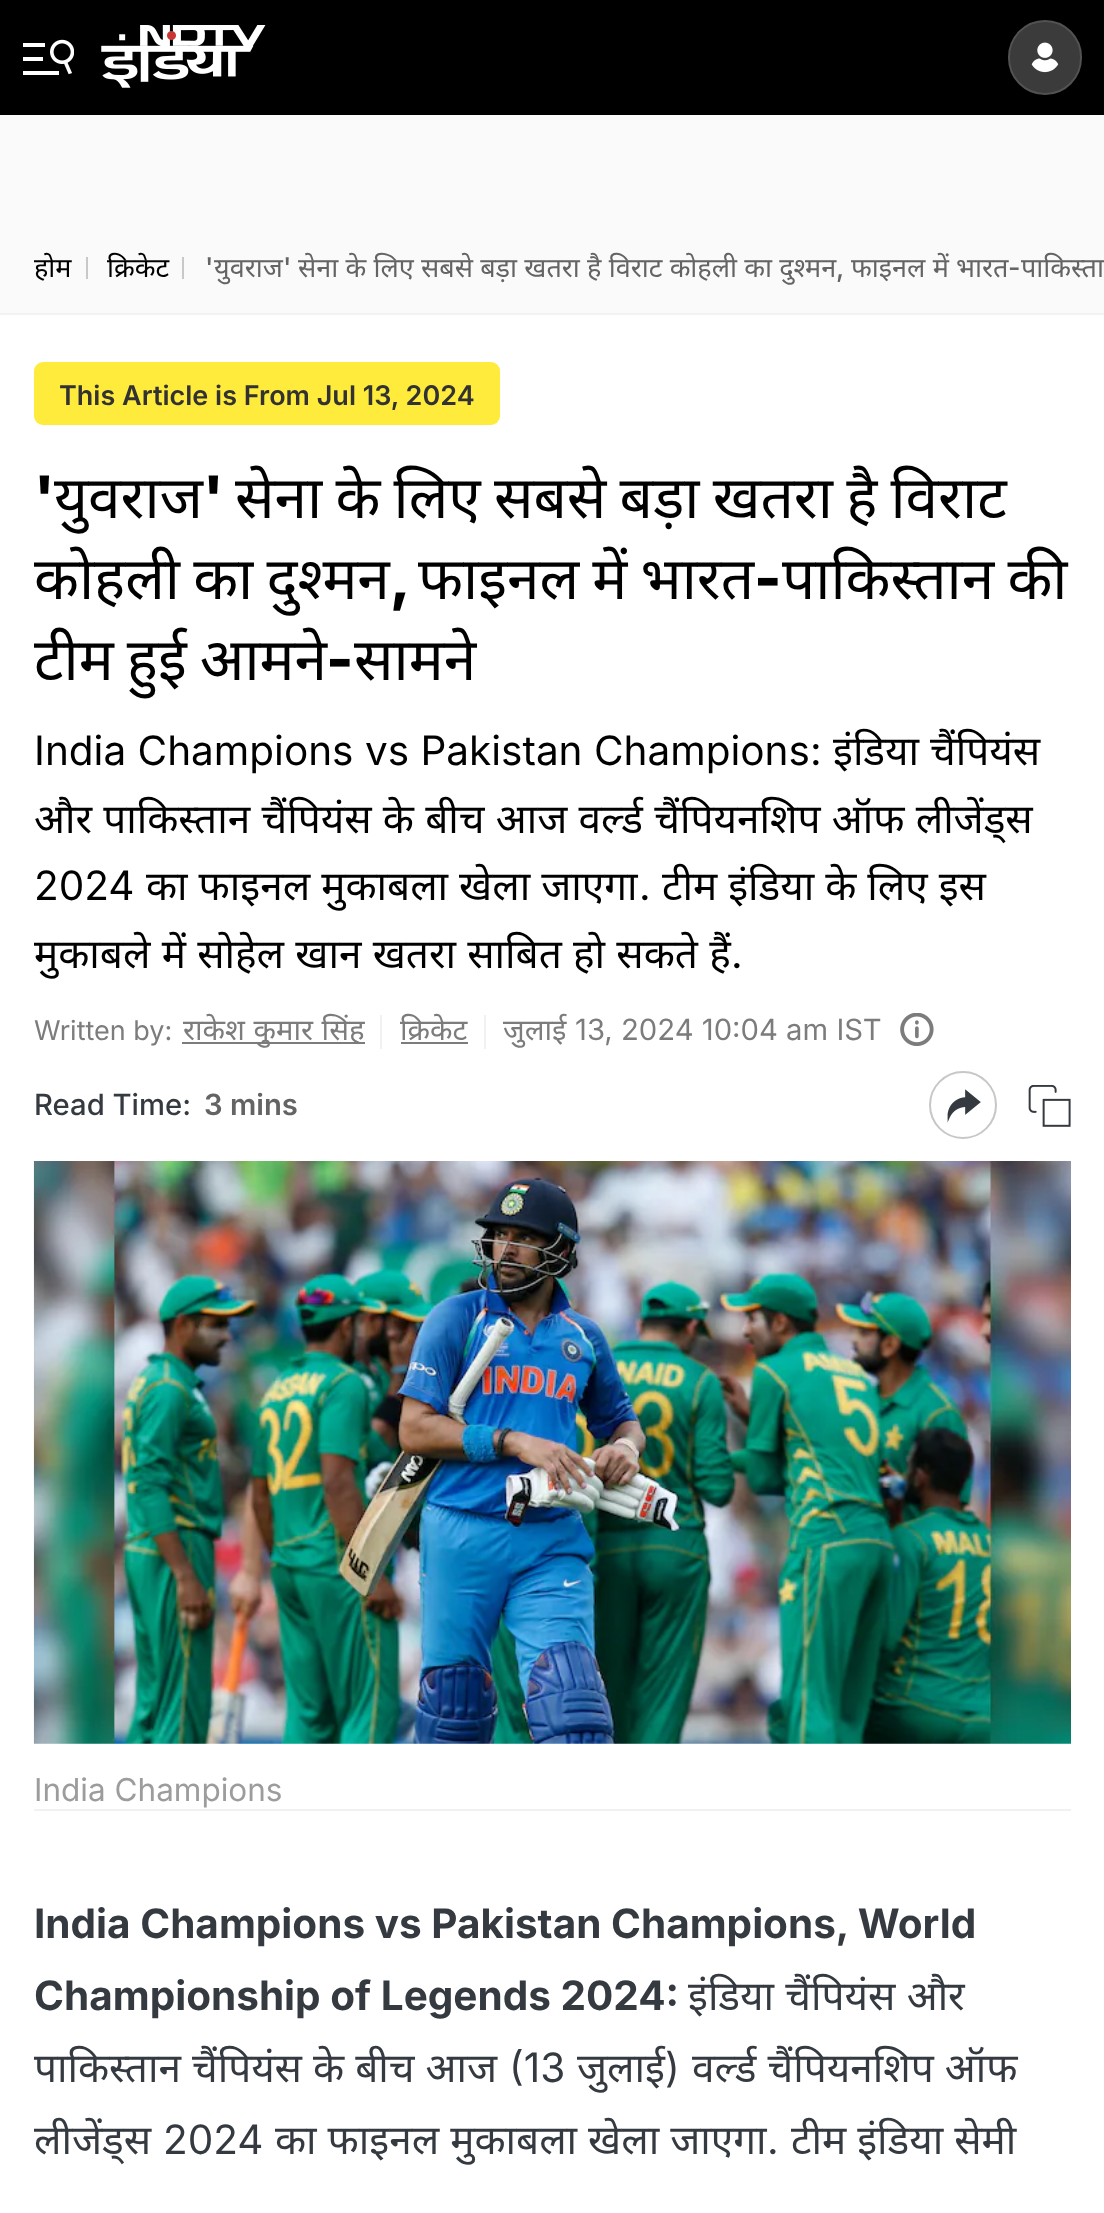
<?xml version="1.0" encoding="UTF-8"?>
<svg xmlns="http://www.w3.org/2000/svg" width="1104" height="2213">
    <defs>
        <clipPath id="clip1"><rect x="34" y="1888" width="1037" height="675"/></clipPath>
    </defs>
    <rect width="100%" height="100%" fill="#FAFAFA"/>
    <rect x="0" y="0" width="1104" height="115" fill="#000000"/>
    <image x="23" y="39" width="51" height="36" href="img_01.png"/>
    <image x="101" y="25" width="165" height="63" href="img_02.png"/>
    <rect x="1009" y="21" width="72" height="73" rx="36" fill="#3B3B3B" stroke="#525252" stroke-width="2"/>
    <image x="1031" y="42" width="28" height="31" href="img_03.png"/>
    <text x="34" y="277" font-family="Noto Sans" font-size="27" fill="#000000">होम</text>
    <rect x="86" y="257" width="2" height="22" fill="#C8C8C8"/>
    <text x="107" y="277" font-family="Noto Sans" font-size="27" fill="#000000">क्रिकेट</text>
    <rect x="182" y="257" width="2" height="22" fill="#C8C8C8"/>
    <text x="205" y="277" font-family="Inter" font-size="27" font-weight="500" fill="#646464">'</text>
    <text x="283" y="277" font-family="Inter" font-size="27" font-weight="500" fill="#646464">'</text>
    <text x="298" y="277" word-spacing="0.25" font-family="Noto Sans" font-size="27" fill="#646464">सेना के लिए सबसे बड़ा खतरा है विराट कोहली का दुश्मन</text>
    <text x="851" y="277" word-spacing="0.25" font-family="Noto Sans" font-size="27" fill="#646464">फाइनल में भारत</text>
    <text x="1021" y="277" word-spacing="0.25" font-family="Noto Sans" font-size="27" fill="#646464">पाकिस्ता</text>
    <text x="214" y="277" font-family="Noto Sans" font-size="27" fill="#646464">युवराज</text>
    <text x="1008" y="277" font-family="Inter" font-size="27" font-weight="500" fill="#646464">-</text>
    <text x="836" y="277" font-family="Inter" font-size="27" font-weight="500" fill="#646464">,</text>
    <rect x="0" y="315" width="1104" height="1898" fill="#FFFFFF"/>
    <rect x="0" y="313" width="1104" height="2" fill="#F2F2F2"/>
    <rect x="34" y="362" width="466" height="63" rx="9" fill="#FFEB3B"/>
    <text x="59" y="405" font-family="Inter" font-size="27" font-weight="600" fill="#323232">This Article is From Jul 13, 2024</text>
    <text x="34" y="518" font-family="Inter" font-size="58.5" font-weight="800" fill="#000000">'</text>
    <text x="203" y="518" font-family="Inter" font-size="58.5" font-weight="800" fill="#000000">'</text>
    <text x="235" y="518" word-spacing="-2" font-family="Noto Sans" font-size="58.5" fill="#000000">सेना के लिए सबसे बड़ा खतरा है विराट</text>
    <text x="54" y="518" font-family="Noto Sans" font-size="58.5" fill="#000000">युवराज</text>
    <text x="34" y="599" word-spacing="-2" font-family="Noto Sans" font-size="58.5" fill="#000000">कोहली का दुश्मन</text>
    <text x="418" y="599" word-spacing="-2" font-family="Noto Sans" font-size="58.5" fill="#000000">फाइनल में भारत</text>
    <text x="754" y="599" font-family="Inter" font-size="58.5" font-weight="800" fill="#000000">-</text>
    <text x="782" y="599" word-spacing="-2" font-family="Noto Sans" font-size="58.5" fill="#000000">पाकिस्तान की</text>
    <text x="390" y="599" font-family="Inter" font-size="58.5" font-weight="800" fill="#000000">,</text>
    <text x="34" y="680" word-spacing="-2" font-family="Noto Sans" font-size="58.5" fill="#000000">टीम हुई आमने</text>
    <text x="326" y="680" font-family="Inter" font-size="58.5" font-weight="800" fill="#000000">-</text>
    <text x="354" y="680" font-family="Noto Sans" font-size="58.5" fill="#000000">सामने</text>
    <text x="34" y="765" font-family="Inter" font-size="40.5" fill="#000000">India Champions vs Pakistan Champions:</text>
    <text x="833" y="765" font-family="Noto Sans" font-size="40.5" fill="#000000">इंडिया</text>
    <text x="930" y="765" font-family="Noto Sans" font-size="40.5" fill="#000000">चैंपियंस</text>
    <text x="34" y="833" word-spacing="0.75" font-family="Noto Sans" font-size="40.5" fill="#000000">और पाकिस्तान चैंपियंस के बीच आज वर्ल्ड चैंपियनशिप ऑफ लीजेंड्स</text>
    <text x="34" y="900" font-family="Inter" font-size="40.5" fill="#000000">2024</text>
    <text x="146" y="900" word-spacing="0.5" font-family="Noto Sans" font-size="40.5" fill="#000000">का फाइनल मुकाबला खेला जाएगा</text>
    <text x="639" y="900" font-family="Inter" font-size="40.5" fill="#000000">.</text>
    <text x="662" y="900" word-spacing="0.5" font-family="Noto Sans" font-size="40.5" fill="#000000">टीम इंडिया के लिए इस</text>
    <text x="34" y="968" word-spacing="0.75" font-family="Noto Sans" font-size="40.5" fill="#000000">मुकाबले में सोहेल खान खतरा साबित हो सकते हैं</text>
    <text x="731" y="968" font-family="Inter" font-size="40.5" fill="#000000">.</text>
    <text x="34" y="1040" font-family="Inter" font-size="27" fill="#7C7C7C">Written by:</text>
    <rect x="182" y="1042" width="183" height="2" fill="#7C7C7C"/>
    <text x="183" y="1040" word-spacing="1" font-family="Noto Sans" font-size="29.25" fill="#7C7C7C">राकेश कुमार सिंह</text>
    <rect x="380" y="1015" width="2" height="34" fill="#F1F1F1"/>
    <text x="400" y="1040" font-family="Noto Sans" font-size="29.25" fill="#7C7C7C">क्रिकेट</text>
    <rect x="401" y="1042" width="67" height="2" fill="#7C7C7C"/>
    <rect x="484" y="1015" width="2" height="34" fill="#F1F1F1"/>
    <text x="503" y="1040" font-family="Noto Sans" font-size="29.25" fill="#7C7C7C">जुलाई</text>
    <text x="575" y="1040" font-family="Inter" font-size="29.25" fill="#7C7C7C">13, 2024 10:04 am IST</text>
    <image x="900" y="1013" width="34" height="33" href="img_04.png"/>
    <text x="34" y="1115" font-family="Inter" font-size="29.25" font-weight="500" fill="#343A40">Read Time:</text>
    <text x="204" y="1115" font-family="Inter" font-size="29.25" font-weight="600" fill="#646464">3 mins</text>
    <circle cx="963" cy="1105" r="33" fill="none" stroke="#C7C7C7" stroke-width="2"/>
    <image x="947" y="1089" width="34" height="34" href="img_05.png"/>
    <image x="1028" y="1085" width="43" height="42" href="img_06.png"/>
    <image x="33" y="1161" width="1038" height="583" href="img_07.png"/>
    <text x="34" y="1801" font-family="Inter" font-size="31.5" fill="#9C9C9C">India Champions</text>
    <rect x="34" y="1809" width="1037" height="2" fill="#F1F1F1"/>
    <text font-family="Inter" font-size="40.5" font-weight="700" fill="#343A40">
        <tspan x="34" y="1938">India Champions vs Pakistan Champions, World</tspan>
        <tspan x="34" y="2010">Championship of Legends 2024:</tspan>
    </text>
    <text x="688" y="2010" word-spacing="0.75" font-family="Noto Sans" font-size="40.5" fill="#343A40">इंडिया चैंपियंस और</text>
    <g clip-path="url(#clip1)">
        <text x="34" y="2082" word-spacing="0.5" font-family="Noto Sans" font-size="40.5" fill="#343A40">पाकिस्तान चैंपियंस के बीच आज</text>
    </g>
    <text x="509" y="2082" font-family="Inter" font-size="40.5" fill="#343A40">(13</text>
    <text x="577" y="2082" font-family="Noto Sans" font-size="40.5" fill="#343A40">जुलाई</text>
    <text x="665" y="2082" font-family="Inter" font-size="40.5" fill="#343A40">)</text>
    <text x="692" y="2082" word-spacing="0.5" font-family="Noto Sans" font-size="40.5" fill="#343A40">वर्ल्ड चैंपियनशिप ऑफ</text>
    <g clip-path="url(#clip1)">
        <text x="34" y="2154" font-family="Noto Sans" font-size="40.5" fill="#343A40">लीजेंड्स</text>
    </g>
    <text x="163" y="2154" font-family="Inter" font-size="40.5" fill="#343A40">2024</text>
    <text x="275" y="2154" word-spacing="0.5" font-family="Noto Sans" font-size="40.5" fill="#343A40">का फाइनल मुकाबला खेला जाएगा</text>
    <text x="767" y="2154" font-family="Inter" font-size="40.5" fill="#343A40">.</text>
    <text x="791" y="2154" word-spacing="0.5" font-family="Noto Sans" font-size="40.5" fill="#343A40">टीम इंडिया सेमी</text>
</svg>
